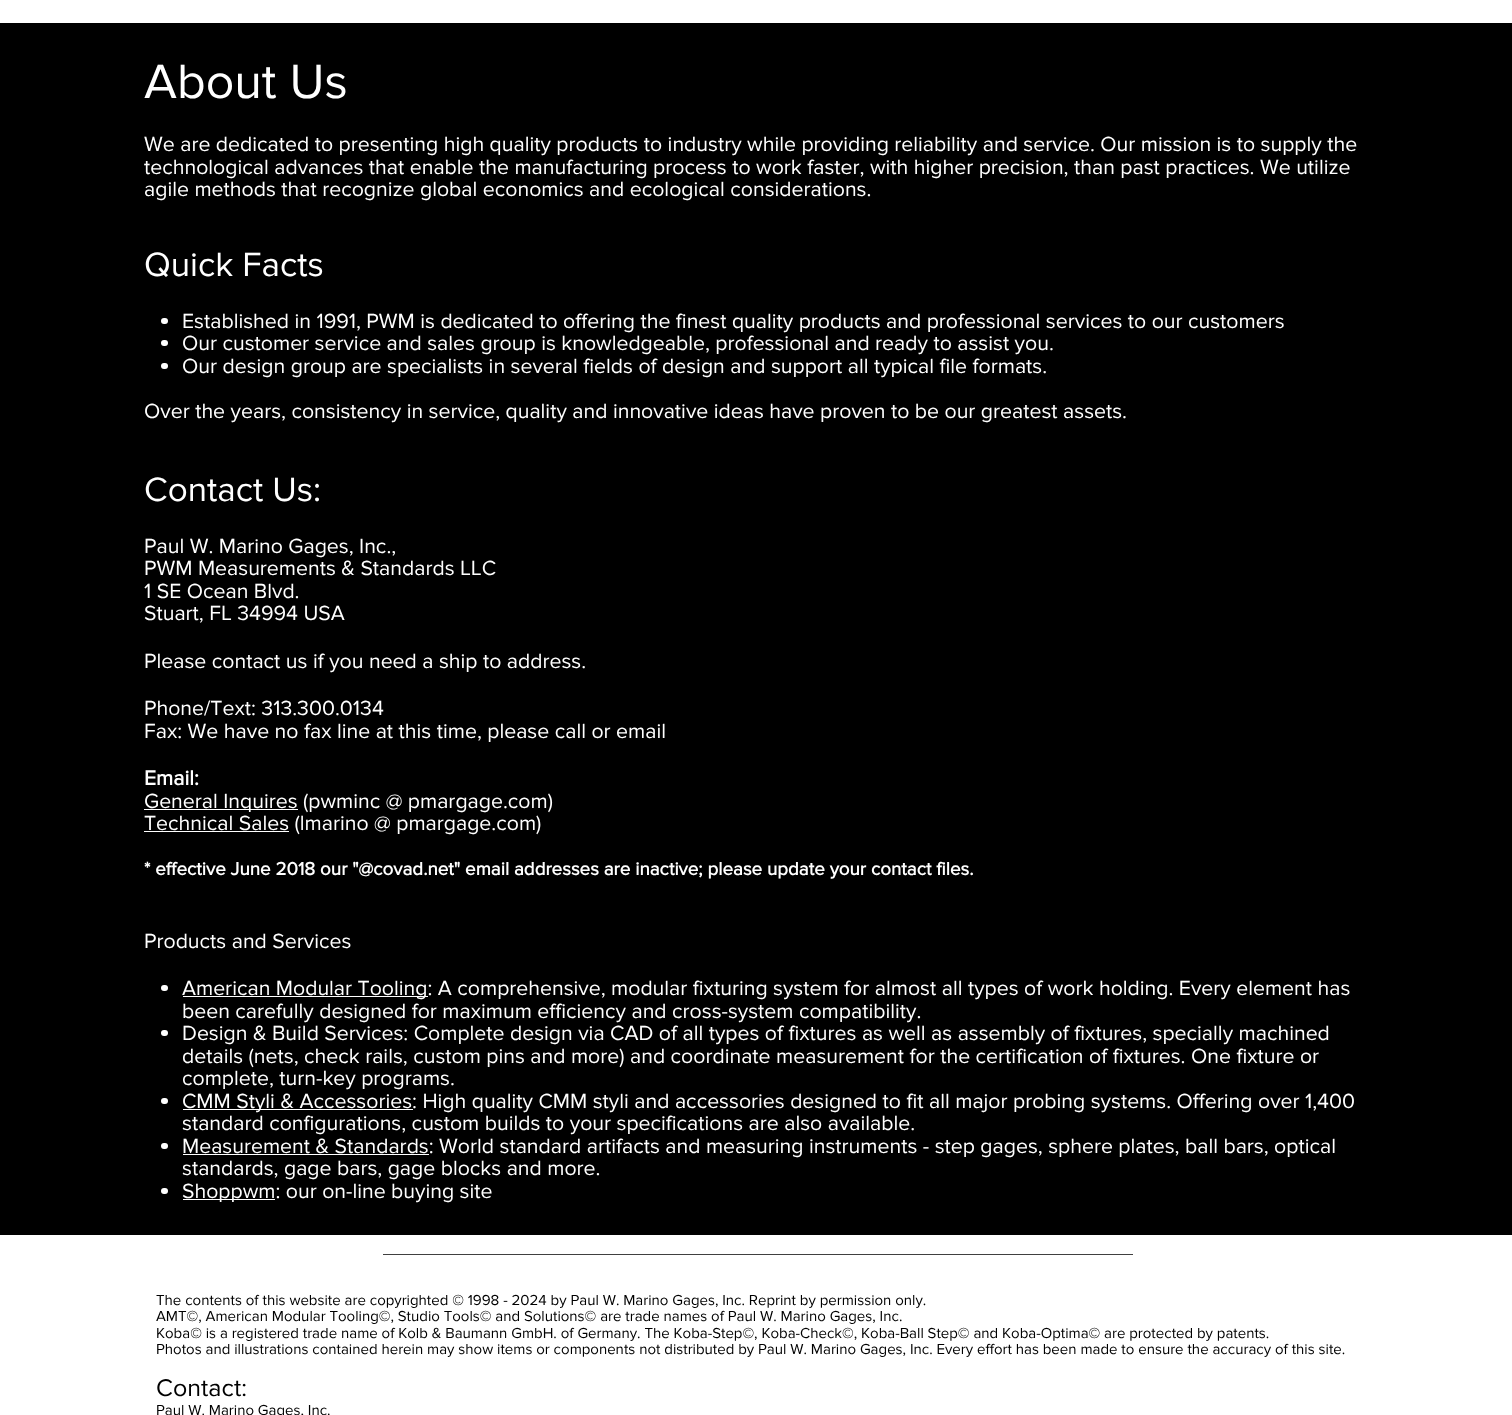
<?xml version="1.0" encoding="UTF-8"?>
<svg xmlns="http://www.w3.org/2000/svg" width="1512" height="1415">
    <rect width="100%" height="100%" fill="#FFFFFF"/>
    <rect x="0" y="23" width="1512" height="1212" fill="#000000"/>
    <text x="144" y="98" font-family="'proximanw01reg'" font-size="50" fill="#FFFFFF">About Us</text>
    <text font-family="'proximanw01reg'" font-size="21.25" fill="#FFFFFF">
        <tspan x="144" y="151">We are dedicated to presenting high quality products to industry while providing reliability and service. Our mission is to supply the</tspan>
        <tspan x="144" y="174">technological advances that enable the manufacturing process to work faster, with higher precision, than past practices. We utilize</tspan>
        <tspan x="144" y="196">agile methods that recognize global economics and ecological considerations.</tspan>
    </text>
    <text x="144" y="276" font-family="'proximanw01reg'" font-size="35" fill="#FFFFFF">Quick Facts</text>
    <rect x="161" y="318" width="7" height="6" rx="3" fill="#FFFFFF"/>
    <text x="182" y="328" font-family="'proximanw01reg'" font-size="21.25" fill="#FFFFFF">Established in 1991, PWM is dedicated to offering the finest quality products and professional services to our customers</text>
    <rect x="161" y="340" width="7" height="6" rx="3" fill="#FFFFFF"/>
    <text x="182" y="350" font-family="'proximanw01reg'" font-size="21.25" fill="#FFFFFF">Our customer service and sales group is knowledgeable, professional and ready to assist you.</text>
    <rect x="161" y="363" width="7" height="6" rx="3" fill="#FFFFFF"/>
    <text x="182" y="373" font-family="'proximanw01reg'" font-size="21.25" fill="#FFFFFF">Our design group are specialists in several fields of design and support all typical file formats.</text>
    <text x="144" y="418" font-family="'proximanw01reg'" font-size="21.25" fill="#FFFFFF">Over the years, consistency in service, quality and innovative ideas have proven to be our greatest assets.</text>
    <text x="144" y="501" font-family="'proximanw01reg'" font-size="35" fill="#FFFFFF">Contact Us:</text>
    <text font-family="'proximanw01reg'" font-size="21.25" fill="#FFFFFF">
        <tspan x="144" y="553">Paul W. Marino Gages, Inc.,</tspan>
        <tspan x="144" y="575">PWM Measurements &amp; Standards LLC</tspan>
        <tspan x="144" y="598">1 SE Ocean Blvd.</tspan>
        <tspan x="144" y="620">Stuart, FL 34994 USA</tspan>
    </text>
    <text x="144" y="668" font-family="'proximanw01reg'" font-size="21.25" fill="#FFFFFF">Please contact us if you need a ship to address.</text>
    <text font-family="'proximanw01reg'" font-size="21.25" fill="#FFFFFF">
        <tspan x="144" y="715">Phone/Text: 313.300.0134</tspan>
        <tspan x="144" y="738">Fax: We have no fax line at this time, please call or email</tspan>
    </text>
    <text x="144" y="785" font-family="'proximanw01reg'" font-size="21.25" font-weight="700" fill="#FFFFFF">Email:</text>
    <rect x="144" y="809" width="154" height="1" fill="#FFFFFF"/>
    <text x="144" y="808" font-family="'proximanw01reg'" font-size="21.25" fill="#FFFFFF">General Inquires (pwminc @ pmargage.com)</text>
    <rect x="144" y="831" width="145" height="1" fill="#FFFFFF"/>
    <text x="144" y="830" font-family="'proximanw01reg'" font-size="21.25" fill="#FFFFFF">Technical Sales (lmarino @ pmargage.com)</text>
    <text x="144" y="875" font-family="'proximanw01reg'" font-size="18.75" font-weight="700" fill="#FFFFFF">* effective June 2018 our "@covad.net" email addresses are inactive; please update your contact files.</text>
    <text x="144" y="948" font-family="'proximanw01reg'" font-size="21.25" fill="#FFFFFF">Products and Services</text>
    <rect x="161" y="985" width="7" height="6" rx="3" fill="#FFFFFF"/>
    <rect x="183" y="996" width="245" height="1" fill="#FFFFFF"/>
    <text font-family="'proximanw01reg'" font-size="21.25" fill="#FFFFFF">
        <tspan x="182" y="995">American Modular Tooling: A comprehensive, modular fixturing system for almost all types of work holding. Every element has</tspan>
        <tspan x="182" y="1018">been carefully designed for maximum efficiency and cross-system compatibility.</tspan>
    </text>
    <rect x="161" y="1030" width="7" height="6" rx="3" fill="#FFFFFF"/>
    <text font-family="'proximanw01reg'" font-size="21.25" fill="#FFFFFF">
        <tspan x="182" y="1040">Design &amp; Build Services: Complete design via CAD of all types of fixtures as well as assembly of fixtures, specially machined</tspan>
        <tspan x="182" y="1063">details (nets, check rails, custom pins and more) and coordinate measurement for the certification of fixtures. One fixture or</tspan>
        <tspan x="182" y="1085">complete, turn-key programs.</tspan>
    </text>
    <rect x="161" y="1098" width="7" height="6" rx="3" fill="#FFFFFF"/>
    <rect x="183" y="1109" width="230" height="1" fill="#FFFFFF"/>
    <text font-family="'proximanw01reg'" font-size="21.25" fill="#FFFFFF">
        <tspan x="182" y="1108">CMM Styli &amp; Accessories: High quality CMM styli and accessories designed to fit all major probing systems. Offering over 1,400</tspan>
        <tspan x="182" y="1130">standard configurations, custom builds to your specifications are also available.</tspan>
    </text>
    <rect x="161" y="1143" width="7" height="6" rx="3" fill="#FFFFFF"/>
    <rect x="183" y="1154" width="246" height="1" fill="#FFFFFF"/>
    <text font-family="'proximanw01reg'" font-size="21.25" fill="#FFFFFF">
        <tspan x="182" y="1153">Measurement &amp; Standards: World standard artifacts and measuring instruments - step gages, sphere plates, ball bars, optical</tspan>
        <tspan x="182" y="1175">standards, gage bars, gage blocks and more.</tspan>
    </text>
    <rect x="161" y="1188" width="7" height="6" rx="3" fill="#FFFFFF"/>
    <rect x="183" y="1199" width="92" height="1" fill="#FFFFFF"/>
    <text x="182" y="1198" font-family="'proximanw01reg'" font-size="21.25" fill="#FFFFFF">Shoppwm: our on-line buying site</text>
    <rect x="383" y="1254" width="750" height="1" fill="#404040"/>
    <text font-family="'proximanw01reg'" font-size="15" fill="#000000">
        <tspan x="156" y="1305">The contents of this website are copyrighted © 1998 - 2024 by Paul W. Marino Gages, Inc. Reprint by permission only.</tspan>
        <tspan x="156" y="1321">AMT©, American Modular Tooling©, Studio Tools© and Solutions© are trade names of Paul W. Marino Gages, Inc.</tspan>
        <tspan x="156" y="1338">Koba© is a registered trade name of Kolb &amp; Baumann GmbH. of Germany. The Koba-Step©, Koba-Check©, Koba-Ball Step© and Koba-Optima© are protected by patents.</tspan>
        <tspan x="156" y="1354">Photos and illustrations contained herein may show items or components not distributed by Paul W. Marino Gages, Inc. Every effort has been made to ensure the accuracy of this site.</tspan>
    </text>
    <text x="156" y="1396" font-family="'proximanw01reg'" font-size="25" fill="#000000">Contact:</text>
    <text x="156" y="1415" font-family="'proximanw01reg'" font-size="15" fill="#000000">Paul W. Marino Gages, Inc.</text>
</svg>
